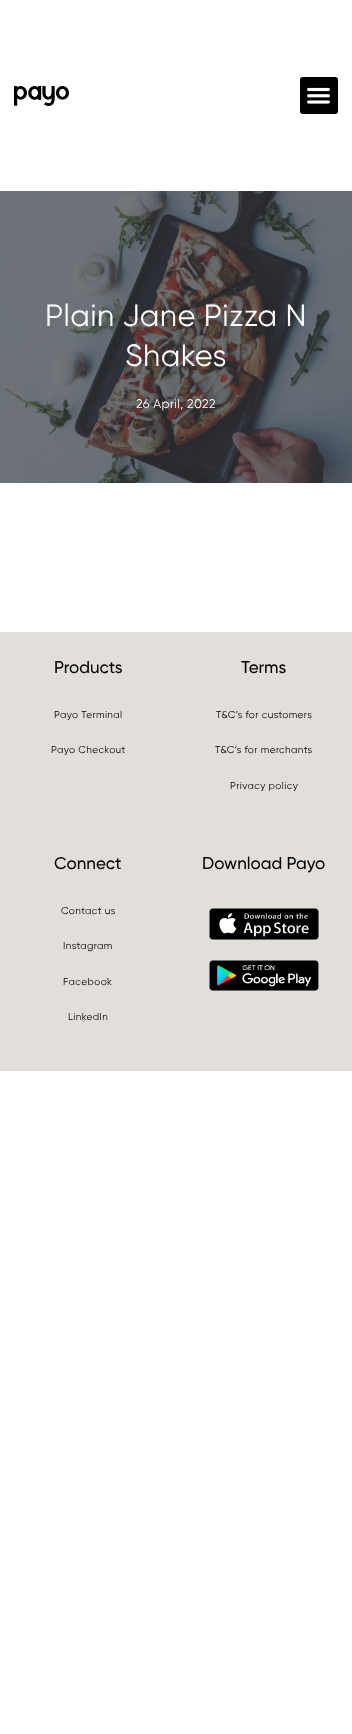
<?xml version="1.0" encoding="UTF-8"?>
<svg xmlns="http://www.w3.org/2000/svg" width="352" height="1734">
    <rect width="100%" height="100%" fill="#FFFFFF"/>
    <image x="14" y="86" width="55" height="20" href="img_01.png"/>
    <rect x="300" y="77" width="38" height="37" rx="3" fill="#000000"/>
    <image x="307" y="87" width="23" height="17" href="img_02.png"/>
    <image x="0" y="191" width="352" height="292" href="img_03.png"/>
    <text x="45" y="326" font-family="Gilroy" font-size="30.75" letter-spacing="0.4" fill="#FFFFFF">Plain Jane Pizza N</text>
    <text x="125" y="366" font-family="Gilroy" font-size="30.75" letter-spacing="0.4" fill="#FFFFFF">Shakes</text>
    <text x="136" y="408" font-family="Gilroy" font-size="12.5" letter-spacing="0.4" fill="#FFFFFF">26 April, 2022</text>
    <rect x="0" y="632" width="352" height="439" fill="#E2DFDA"/>
    <text x="54" y="673" font-family="Gilroy" font-size="17" font-weight="500" fill="#000000">Products</text>
    <text x="54" y="718" font-family="Gilroy" font-size="10" letter-spacing="0.4" fill="#000000">Payo Terminal</text>
    <text x="51" y="753" font-family="Gilroy" font-size="10" letter-spacing="0.4" fill="#000000">Payo Checkout</text>
    <text x="241" y="673" font-family="Gilroy" font-size="17" font-weight="500" fill="#000000">Terms</text>
    <text x="216" y="718" font-family="Gilroy" font-size="10" letter-spacing="0.4" fill="#000000">T&amp;C’s for customers</text>
    <text x="215" y="753" font-family="Gilroy" font-size="10" letter-spacing="0.4" fill="#000000">T&amp;C’s for merchants</text>
    <text x="230" y="789" font-family="Gilroy" font-size="10" letter-spacing="0.4" fill="#000000">Privacy policy</text>
    <text x="54" y="869" font-family="Gilroy" font-size="17" font-weight="500" fill="#000000">Connect</text>
    <text x="61" y="914" font-family="Gilroy" font-size="10" letter-spacing="0.4" fill="#000000">Contact us</text>
    <text x="63" y="949" font-family="Gilroy" font-size="10" letter-spacing="0.4" fill="#000000">Instagram</text>
    <text x="63" y="985" font-family="Gilroy" font-size="10" letter-spacing="0.4" fill="#000000">Facebook</text>
    <text x="68" y="1020" font-family="Gilroy" font-size="10" letter-spacing="0.4" fill="#000000">LinkedIn</text>
    <text x="202" y="869" font-family="Gilroy" font-size="17" font-weight="500" fill="#000000">Download Payo</text>
    <image x="209" y="908" width="110" height="32" href="img_04.png"/>
    <image x="209" y="960" width="110" height="31" href="img_05.png"/>
</svg>
